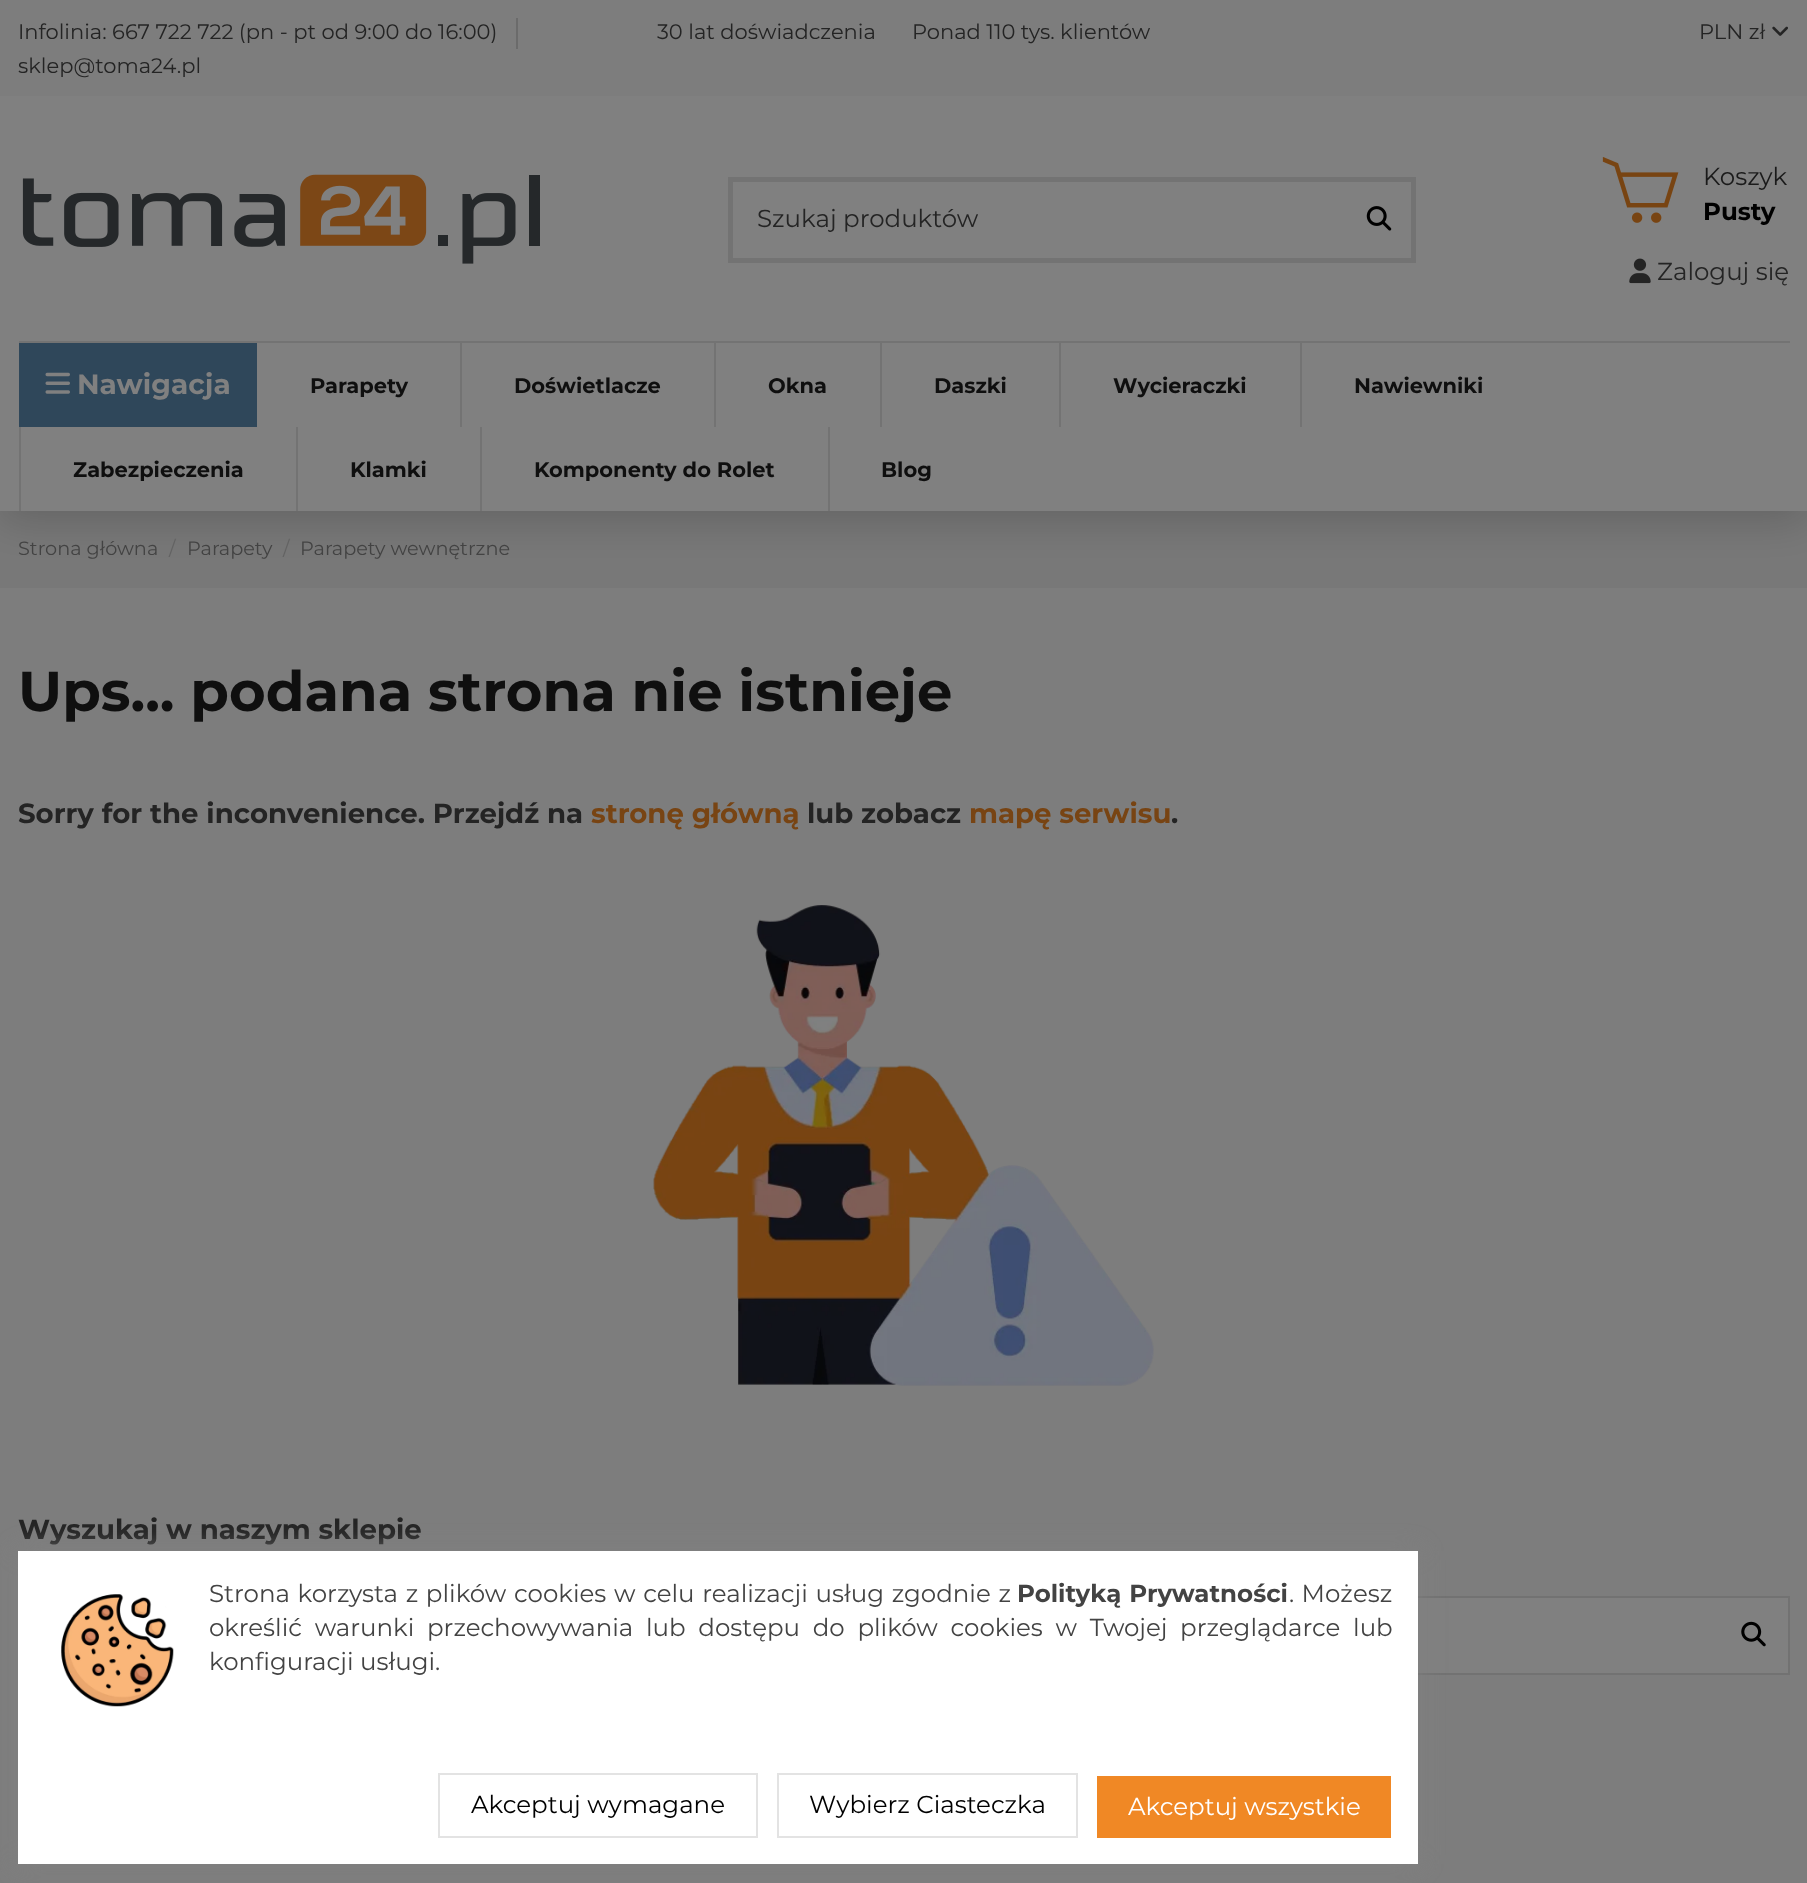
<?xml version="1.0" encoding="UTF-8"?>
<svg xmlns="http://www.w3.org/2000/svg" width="1807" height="1883">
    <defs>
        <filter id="blur1" x="-50%" y="-200%" width="200%" height="500%"><feGaussianBlur stdDeviation="22"/></filter>
        <filter id="blur2" x="-50%" y="-200%" width="200%" height="500%"><feGaussianBlur stdDeviation="13"/></filter>
    </defs>
    <rect width="100%" height="100%" fill="#7D7D7D"/>
    <rect x="0" y="511" width="1807" height="77" fill="#787878"/>
    <rect x="0" y="9" width="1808" height="511" fill="#000000" fill-opacity="0.18" filter="url(#blur1)"/>
    <rect x="0" y="96" width="1807" height="415" fill="#808080"/>
    <rect x="0" y="0" width="1807" height="96" fill="#7D7D7D"/>
    <text x="18" y="39" font-family="Montserrat" font-size="21" fill="#242424">Infolinia: 667 722 722 (pn - pt od 9:00 do 16:00)</text>
    <rect x="516" y="18" width="2" height="31" fill="#6B6B6B"/>
    <text x="18" y="73" font-family="Montserrat" font-size="21" fill="#242424">sklep@toma24.pl</text>
    <text x="657" y="39" font-family="Montserrat" font-size="21" fill="#242424">30 lat doświadczenia</text>
    <text x="912" y="39" font-family="Montserrat" font-size="21" fill="#242424">Ponad 110 tys. klientów</text>
    <text x="1699" y="39" font-family="Montserrat" font-size="21" fill="#242424">PLN zł</text>
    <image x="1772" y="26" width="16" height="10" href="img_01.png"/>
    <image x="22" y="174" width="518" height="90" href="img_02.png"/>
    <rect x="730.5" y="179.5" width="683" height="81" fill="none" stroke="#737373" stroke-width="5"/>
    <text x="757" y="227" font-family="Montserrat" font-size="24.5" fill="#242424">Szukaj produktów</text>
    <image x="1366" y="206" width="26" height="25" href="img_03.png"/>
    <image x="1602" y="157" width="77" height="66" href="img_04.png"/>
    <text x="1703" y="185" font-family="Montserrat" font-size="24.5" fill="#1A1A1A">Koszyk</text>
    <text x="1703" y="220" font-family="Montserrat" font-size="24.5" font-weight="700" fill="#000000">Pusty</text>
    <image x="1629" y="258" width="22" height="26" href="img_05.png"/>
    <text x="1657" y="280" font-family="Montserrat" font-size="24.5" fill="#242424">Zaloguj się</text>
    <rect x="19" y="341" width="1771" height="2" fill="#737373"/>
    <rect x="19" y="343" width="238" height="84" fill="#2F475A"/>
    <image x="45" y="372" width="25" height="22" href="img_06.png"/>
    <text x="77" y="394" font-family="Montserrat" font-size="28" font-weight="700" fill="#808080">Nawigacja</text>
    <text x="310" y="393" font-family="Montserrat" font-size="21" font-weight="700" fill="#0F0F0F">Parapety</text>
    <rect x="460" y="343" width="2" height="84" fill="#737373"/>
    <text x="514" y="393" font-family="Montserrat" font-size="21" font-weight="700" fill="#0F0F0F">Doświetlacze</text>
    <rect x="714" y="343" width="2" height="84" fill="#737373"/>
    <text x="768" y="393" font-family="Montserrat" font-size="21" font-weight="700" fill="#0F0F0F">Okna</text>
    <rect x="880" y="343" width="2" height="84" fill="#737373"/>
    <text x="934" y="393" font-family="Montserrat" font-size="21" font-weight="700" fill="#0F0F0F">Daszki</text>
    <rect x="1059" y="343" width="2" height="84" fill="#737373"/>
    <text x="1113" y="393" font-family="Montserrat" font-size="21" font-weight="700" fill="#0F0F0F">Wycieraczki</text>
    <rect x="1300" y="343" width="2" height="84" fill="#737373"/>
    <text x="1354" y="393" font-family="Montserrat" font-size="21" font-weight="700" fill="#0F0F0F">Nawiewniki</text>
    <rect x="19" y="427" width="2" height="84" fill="#737373"/>
    <text x="73" y="477" font-family="Montserrat" font-size="21" font-weight="700" fill="#0F0F0F">Zabezpieczenia</text>
    <rect x="296" y="427" width="2" height="84" fill="#737373"/>
    <text x="350" y="477" font-family="Montserrat" font-size="21" font-weight="700" fill="#0F0F0F">Klamki</text>
    <rect x="480" y="427" width="2" height="84" fill="#737373"/>
    <text x="534" y="477" font-family="Montserrat" font-size="21" font-weight="700" fill="#0F0F0F">Komponenty do Rolet</text>
    <rect x="828" y="427" width="2" height="84" fill="#737373"/>
    <text x="881" y="477" font-family="Montserrat" font-size="21" font-weight="700" fill="#0F0F0F">Blog</text>
    <text x="18" y="555" font-family="Montserrat" font-size="19.25" fill="#434343">Strona główna</text>
    <text x="169" y="555" font-family="Montserrat" font-size="19.25" fill="#636363">/</text>
    <text x="187" y="555" font-family="Montserrat" font-size="19.25" fill="#434343">Parapety</text>
    <text x="283" y="555" font-family="Montserrat" font-size="19.25" fill="#636363">/</text>
    <text x="300" y="555" font-family="Montserrat" font-size="19.25" fill="#434343">Parapety wewnętrzne</text>
    <text x="18" y="711" font-family="Montserrat" font-size="56" font-weight="700" fill="#0F0F0F">Ups... podana strona nie istnieje</text>
    <text x="18" y="823" font-family="Montserrat" font-size="27.6" font-weight="700" fill="#242424">Sorry for the inconvenience. Przejdź na</text>
    <text x="591" y="823" font-family="Montserrat" font-size="27.6" font-weight="700" fill="#784413">stronę główną</text>
    <text x="807" y="823" font-family="Montserrat" font-size="27.6" font-weight="700" fill="#242424">lub zobacz</text>
    <text x="969" y="823" font-family="Montserrat" font-size="27.6" font-weight="700" fill="#784413">mapę serwisu</text>
    <text x="1171" y="823" font-family="Montserrat" font-size="27.6" font-weight="700" fill="#242424">.</text>
    <image x="653" y="905" width="501" height="481" href="img_07.png"/>
    <text x="18" y="1539" font-family="Montserrat" font-size="27.6" font-weight="700" fill="#242424">Wyszukaj w naszym sklepie</text>
    <rect x="1418" y="1598" width="370" height="75" fill="#808080"/>
    <rect x="20" y="1597" width="1769" height="77" fill="none" stroke="#727272" stroke-width="2"/>
    <image x="1741" y="1621" width="25" height="26" href="img_08.png"/>
    <rect x="18" y="1551" width="1400" height="313" fill="#808080" filter="url(#blur2)"/>
    <rect x="18" y="1551" width="1400" height="313" fill="#FFFFFF"/>
    <image x="61" y="1594" width="113" height="113" href="img_09.png"/>
    <text x="209" y="1602" word-spacing="1.25" font-family="Montserrat" font-size="24.5" fill="#434343">Strona korzysta z plików cookies w celu realizacji usług zgodnie z</text>
    <text x="1017" y="1602" word-spacing="1" font-family="Montserrat" font-size="24.5" font-weight="700" fill="#434343">Polityką Prywatności</text>
    <text x="1289" y="1602" word-spacing="1" font-family="Montserrat" font-size="24.5" fill="#434343">. Możesz</text>
    <text font-family="Montserrat" font-size="24.5" fill="#434343">
        <tspan x="209" y="1636" word-spacing="6.25">określić warunki przechowywania lub dostępu do plików cookies w Twojej przeglądarce lub</tspan>
        <tspan x="209" y="1670">konfiguracji usługi.</tspan>
    </text>
    <rect x="439" y="1774" width="318" height="63" fill="none" stroke="#E3E3E3" stroke-width="2"/>
    <text x="471" y="1813" font-family="Montserrat" font-size="24.5" fill="#000000">Akceptuj wymagane</text>
    <rect x="778" y="1774" width="299" height="63" fill="none" stroke="#E3E3E3" stroke-width="2"/>
    <text x="809" y="1813" font-family="Montserrat" font-size="24.5" fill="#000000">Wybierz Ciasteczka</text>
    <rect x="1097" y="1776" width="294" height="62" fill="#F08825"/>
    <text x="1128" y="1815" font-family="Montserrat" font-size="24.5" fill="#FFFFFF">Akceptuj wszystkie</text>
</svg>
